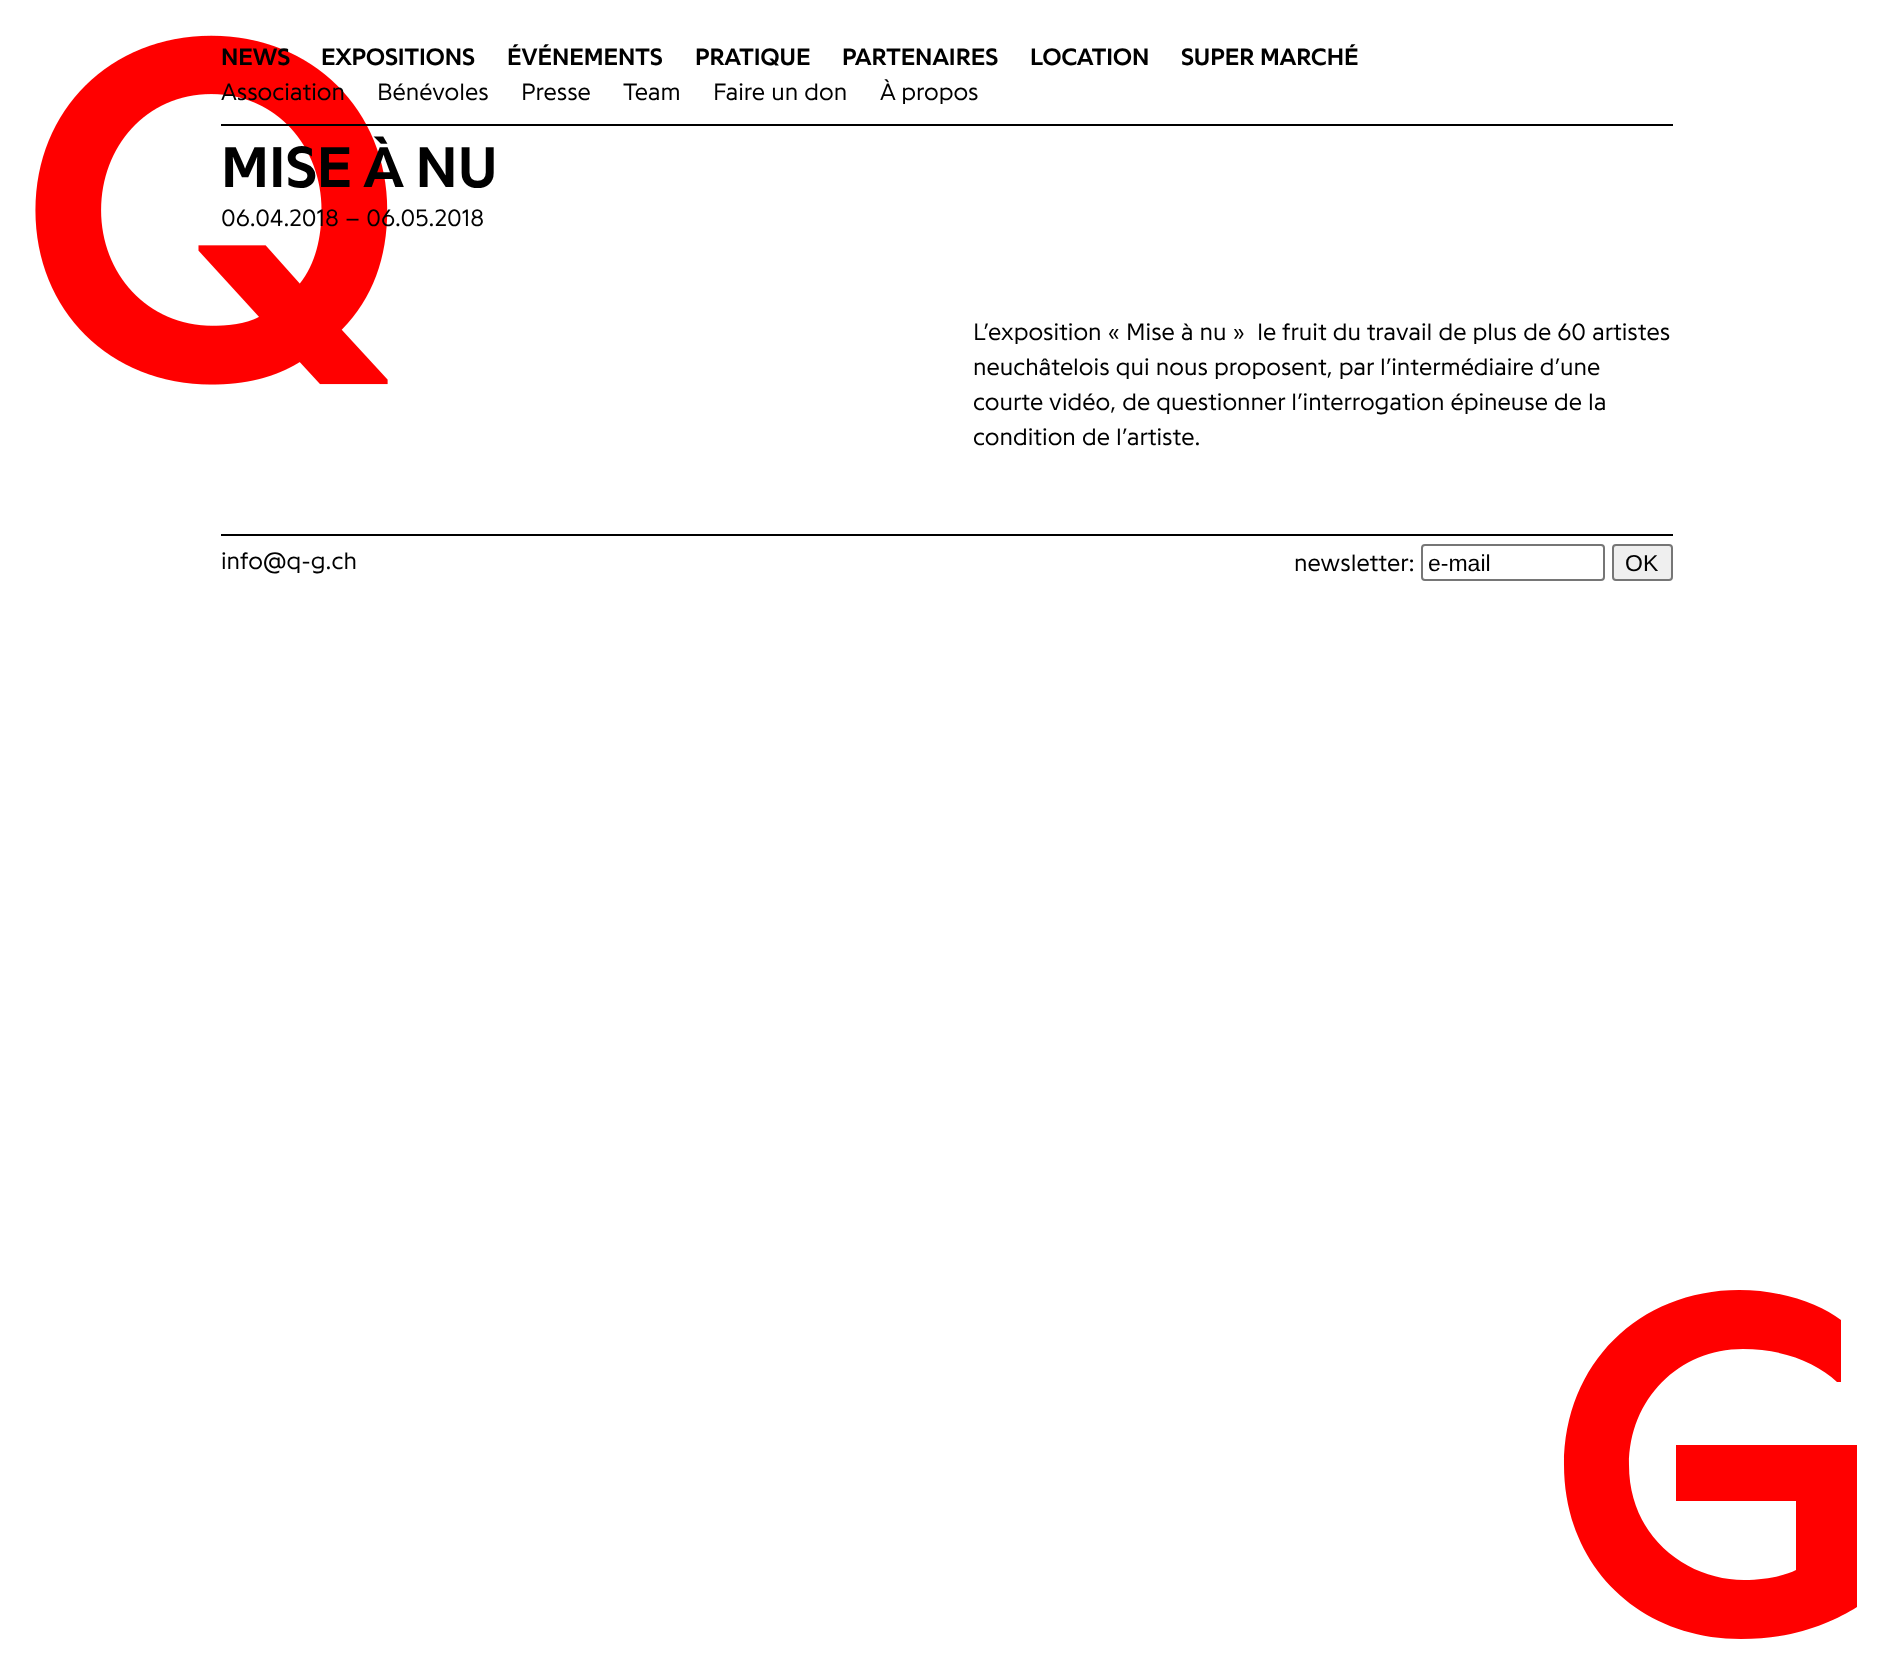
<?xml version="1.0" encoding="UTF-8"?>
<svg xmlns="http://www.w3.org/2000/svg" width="1892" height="1674">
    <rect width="100%" height="100%" fill="#FFFFFF"/>
    <image x="35" y="35" width="353" height="350" href="img_01.png"/>
    <text x="221" y="65" font-family="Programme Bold" font-size="24.5" font-weight="700" fill="#000000">NEWS</text>
    <text x="321" y="65" font-family="Programme Bold" font-size="24.5" font-weight="700" fill="#000000">EXPOSITIONS</text>
    <text x="507" y="65" font-family="Programme Bold" font-size="24.5" font-weight="700" fill="#000000">ÉVÉNEMENTS</text>
    <text x="695" y="65" font-family="Programme Bold" font-size="24.5" font-weight="700" fill="#000000">PRATIQUE</text>
    <text x="842" y="65" font-family="Programme Bold" font-size="24.5" font-weight="700" fill="#000000">PARTENAIRES</text>
    <text x="1030" y="65" font-family="Programme Bold" font-size="24.5" font-weight="700" fill="#000000">LOCATION</text>
    <text x="1181" y="65" font-family="Programme Bold" font-size="24.5" font-weight="700" fill="#000000">SUPER MARCHÉ</text>
    <text x="221" y="100" font-family="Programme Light" font-size="24.5" font-weight="300" fill="#000000">Association</text>
    <text x="377" y="100" font-family="Programme Light" font-size="24.5" font-weight="300" fill="#000000">Bénévoles</text>
    <text x="521" y="100" font-family="Programme Light" font-size="24.5" font-weight="300" fill="#000000">Presse</text>
    <text x="623" y="100" font-family="Programme Light" font-size="24.5" font-weight="300" fill="#000000">Team</text>
    <text x="713" y="100" font-family="Programme Light" font-size="24.5" font-weight="300" fill="#000000">Faire un don</text>
    <text x="880" y="100" font-family="Programme Light" font-size="24.5" font-weight="300" fill="#000000">À propos</text>
    <rect x="221" y="124" width="1452" height="2" fill="#000000"/>
    <text x="221" y="187" font-family="Programme Bold" font-size="59.5" font-weight="700" fill="#000000">MISE À NU</text>
    <text x="221" y="226" font-family="Programme Light" font-size="24.5" font-weight="300" fill="#000000">06.04.2018 – 06.05.2018</text>
    <text font-family="Programme Light" font-size="24.5" font-weight="300" fill="#000000" xml:space="preserve"><tspan x="973" y="340">L’exposition « Mise à nu »  le fruit du travail de plus de 60 artistes</tspan><tspan x="973" y="375">neuchâtelois qui nous proposent, par l’intermédiaire d’une</tspan><tspan x="973" y="410">courte vidéo, de questionner l’interrogation épineuse de la</tspan><tspan x="973" y="445">condition de l’artiste.</tspan></text>
    <rect x="221" y="534" width="1452" height="2" fill="#000000"/>
    <text x="221" y="569" font-family="Programme Light" font-size="24.5" font-weight="300" fill="#000000">info@q-g.ch</text>
    <text x="1294" y="571" font-family="Programme Light" font-size="24.5" font-weight="300" fill="#000000">newsletter:</text>
    <rect x="1422" y="545" width="182" height="35" rx="3" fill="none" stroke="#767676" stroke-width="2"/>
    <text x="1428" y="571" font-family="Liberation Sans" font-size="23" fill="#000000">e-mail</text>
    <rect x="1613" y="545" width="59" height="35" rx="3" fill="#EFEFEF" stroke="#767676" stroke-width="2"/>
    <text x="1625" y="571" font-family="Liberation Sans" font-size="23" fill="#000000">OK</text>
    <path d="M 1676 1445 V 1501 H 1796 V 1570 C 1786 1575 1767 1580 1744 1580 C 1688 1580 1629 1538 1629 1465 C 1629 1399 1679 1349 1743 1349 C 1782 1349 1816 1362 1837 1382 H 1841 V 1320 C 1820 1304 1783 1290 1739 1290 C 1639 1290 1564 1364 1564 1465 C 1564 1565 1638 1639 1741 1639 C 1796 1639 1833 1622 1857 1607 V 1445 Z" fill="#FF0000"/>
</svg>
